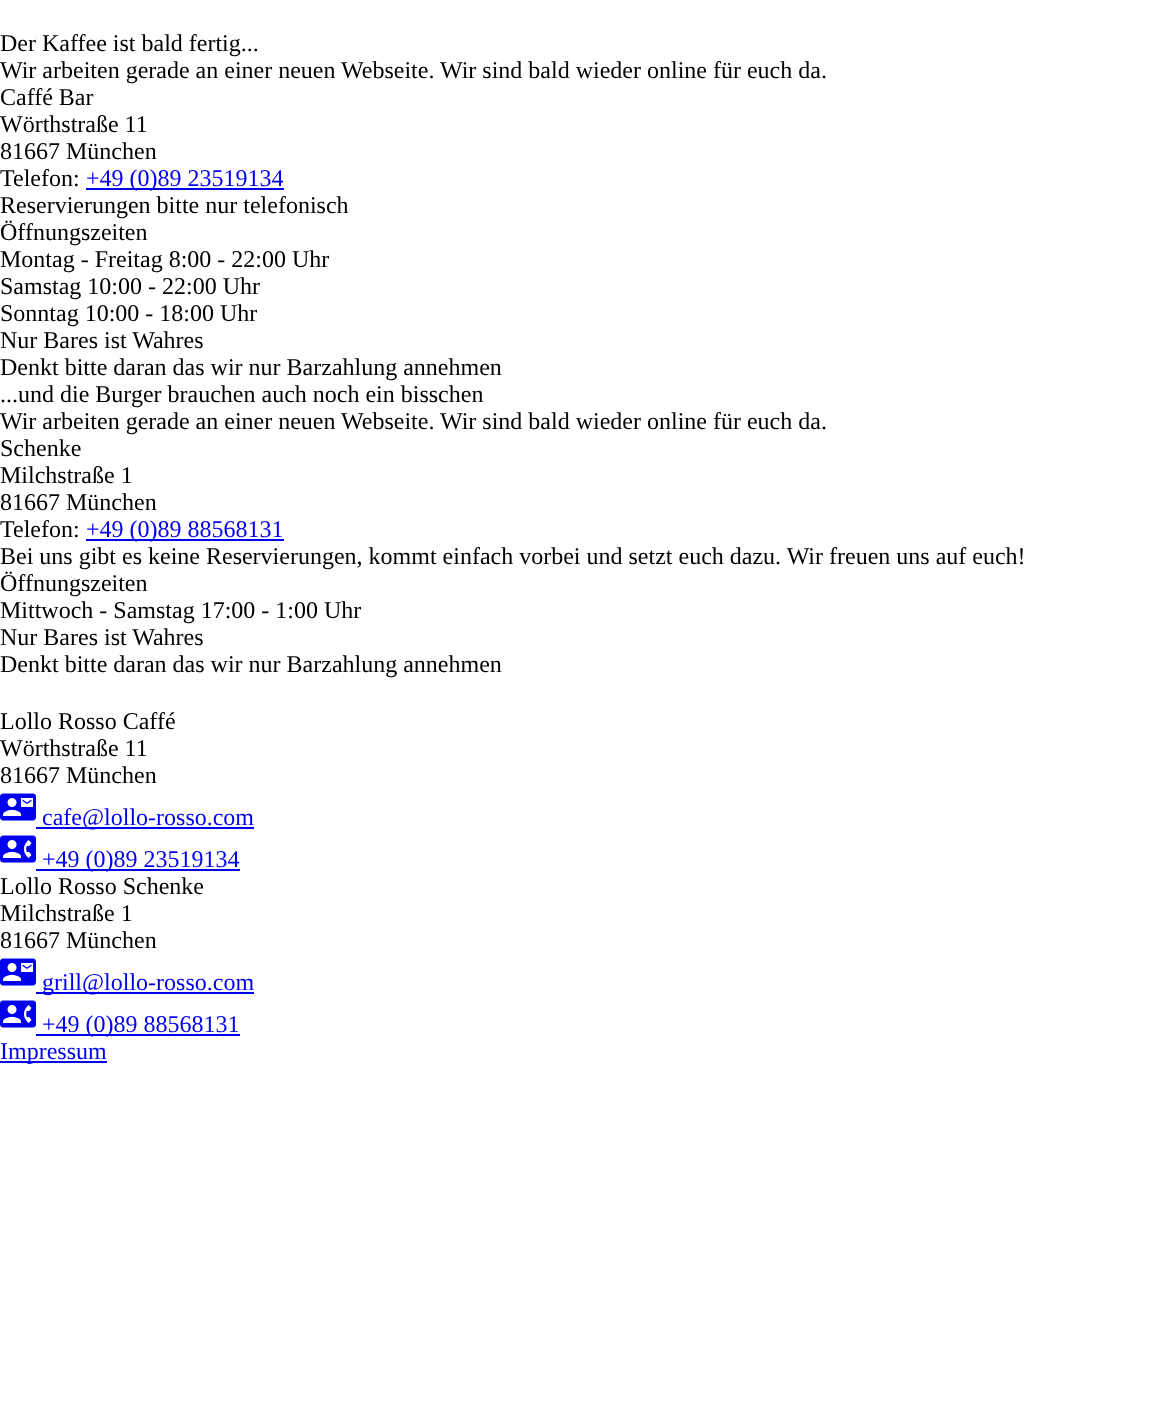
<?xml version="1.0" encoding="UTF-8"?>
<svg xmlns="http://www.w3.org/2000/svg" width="1166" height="1406">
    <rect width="100%" height="100%" fill="#FFFFFF"/>
    <text font-family="Liberation Serif" font-size="24" fill="#000000">
        <tspan x="0" y="51">Der Kaffee ist bald fertig...</tspan>
        <tspan x="0" y="78">Wir arbeiten gerade an einer neuen Webseite. Wir sind bald wieder online für euch da.</tspan>
        <tspan x="0" y="105">Caffé Bar</tspan>
        <tspan x="0" y="132">Wörthstraße 11</tspan>
        <tspan x="0" y="159">81667 München</tspan>
        <tspan x="0" y="186">Telefon:</tspan>
    </text>
    <rect x="86" y="188" width="198" height="2" fill="#0000EE"/>
    <text x="86" y="186" font-family="Liberation Serif" font-size="24" fill="#0000EE">+49 (0)89 23519134</text>
    <text font-family="Liberation Serif" font-size="24" fill="#000000">
        <tspan x="0" y="213">Reservierungen bitte nur telefonisch</tspan>
        <tspan x="0" y="240">Öffnungszeiten</tspan>
        <tspan x="0" y="267">Montag - Freitag 8:00 - 22:00 Uhr</tspan>
        <tspan x="0" y="294">Samstag 10:00 - 22:00 Uhr</tspan>
        <tspan x="0" y="321">Sonntag 10:00 - 18:00 Uhr</tspan>
        <tspan x="0" y="348">Nur Bares ist Wahres</tspan>
        <tspan x="0" y="375">Denkt bitte daran das wir nur Barzahlung annehmen</tspan>
        <tspan x="0" y="402">...und die Burger brauchen auch noch ein bisschen</tspan>
        <tspan x="0" y="429">Wir arbeiten gerade an einer neuen Webseite. Wir sind bald wieder online für euch da.</tspan>
        <tspan x="0" y="456">Schenke</tspan>
        <tspan x="0" y="483">Milchstraße 1</tspan>
        <tspan x="0" y="510">81667 München</tspan>
        <tspan x="0" y="537">Telefon:</tspan>
    </text>
    <rect x="86" y="539" width="198" height="2" fill="#0000EE"/>
    <text x="86" y="537" font-family="Liberation Serif" font-size="24" fill="#0000EE">+49 (0)89 88568131</text>
    <text font-family="Liberation Serif" font-size="24" fill="#000000">
        <tspan x="0" y="564">Bei uns gibt es keine Reservierungen, kommt einfach vorbei und setzt euch dazu. Wir freuen uns auf euch!</tspan>
        <tspan x="0" y="591">Öffnungszeiten</tspan>
        <tspan x="0" y="618">Mittwoch - Samstag 17:00 - 1:00 Uhr</tspan>
        <tspan x="0" y="645">Nur Bares ist Wahres</tspan>
        <tspan x="0" y="672">Denkt bitte daran das wir nur Barzahlung annehmen</tspan>
    </text>
    <text font-family="Liberation Serif" font-size="24" fill="#000000">
        <tspan x="0" y="729">Lollo Rosso Caffé</tspan>
        <tspan x="0" y="756">Wörthstraße 11</tspan>
        <tspan x="0" y="783">81667 München</tspan>
    </text>
    <image x="0" y="793" width="36" height="28" href="img_01.png"/>
    <rect x="36" y="827" width="218" height="2" fill="#0000EE"/>
    <text x="42" y="825" font-family="Liberation Serif" font-size="24" fill="#0000EE">cafe@lollo-rosso.com</text>
    <image x="0" y="835" width="36" height="28" href="img_02.png"/>
    <rect x="36" y="869" width="204" height="2" fill="#0000EE"/>
    <text x="42" y="867" font-family="Liberation Serif" font-size="24" fill="#0000EE">+49 (0)89 23519134</text>
    <text font-family="Liberation Serif" font-size="24" fill="#000000">
        <tspan x="0" y="894">Lollo Rosso Schenke</tspan>
        <tspan x="0" y="921">Milchstraße 1</tspan>
        <tspan x="0" y="948">81667 München</tspan>
    </text>
    <image x="0" y="958" width="36" height="28" href="img_01.png"/>
    <rect x="36" y="992" width="218" height="2" fill="#0000EE"/>
    <text x="42" y="990" font-family="Liberation Serif" font-size="24" fill="#0000EE">grill@lollo-rosso.com</text>
    <image x="0" y="1000" width="36" height="28" href="img_02.png"/>
    <rect x="36" y="1034" width="204" height="2" fill="#0000EE"/>
    <text x="42" y="1032" font-family="Liberation Serif" font-size="24" fill="#0000EE">+49 (0)89 88568131</text>
    <rect x="0" y="1061" width="107" height="2" fill="#0000EE"/>
    <text x="0" y="1059" font-family="Liberation Serif" font-size="24" fill="#0000EE">Impressum</text>
</svg>
